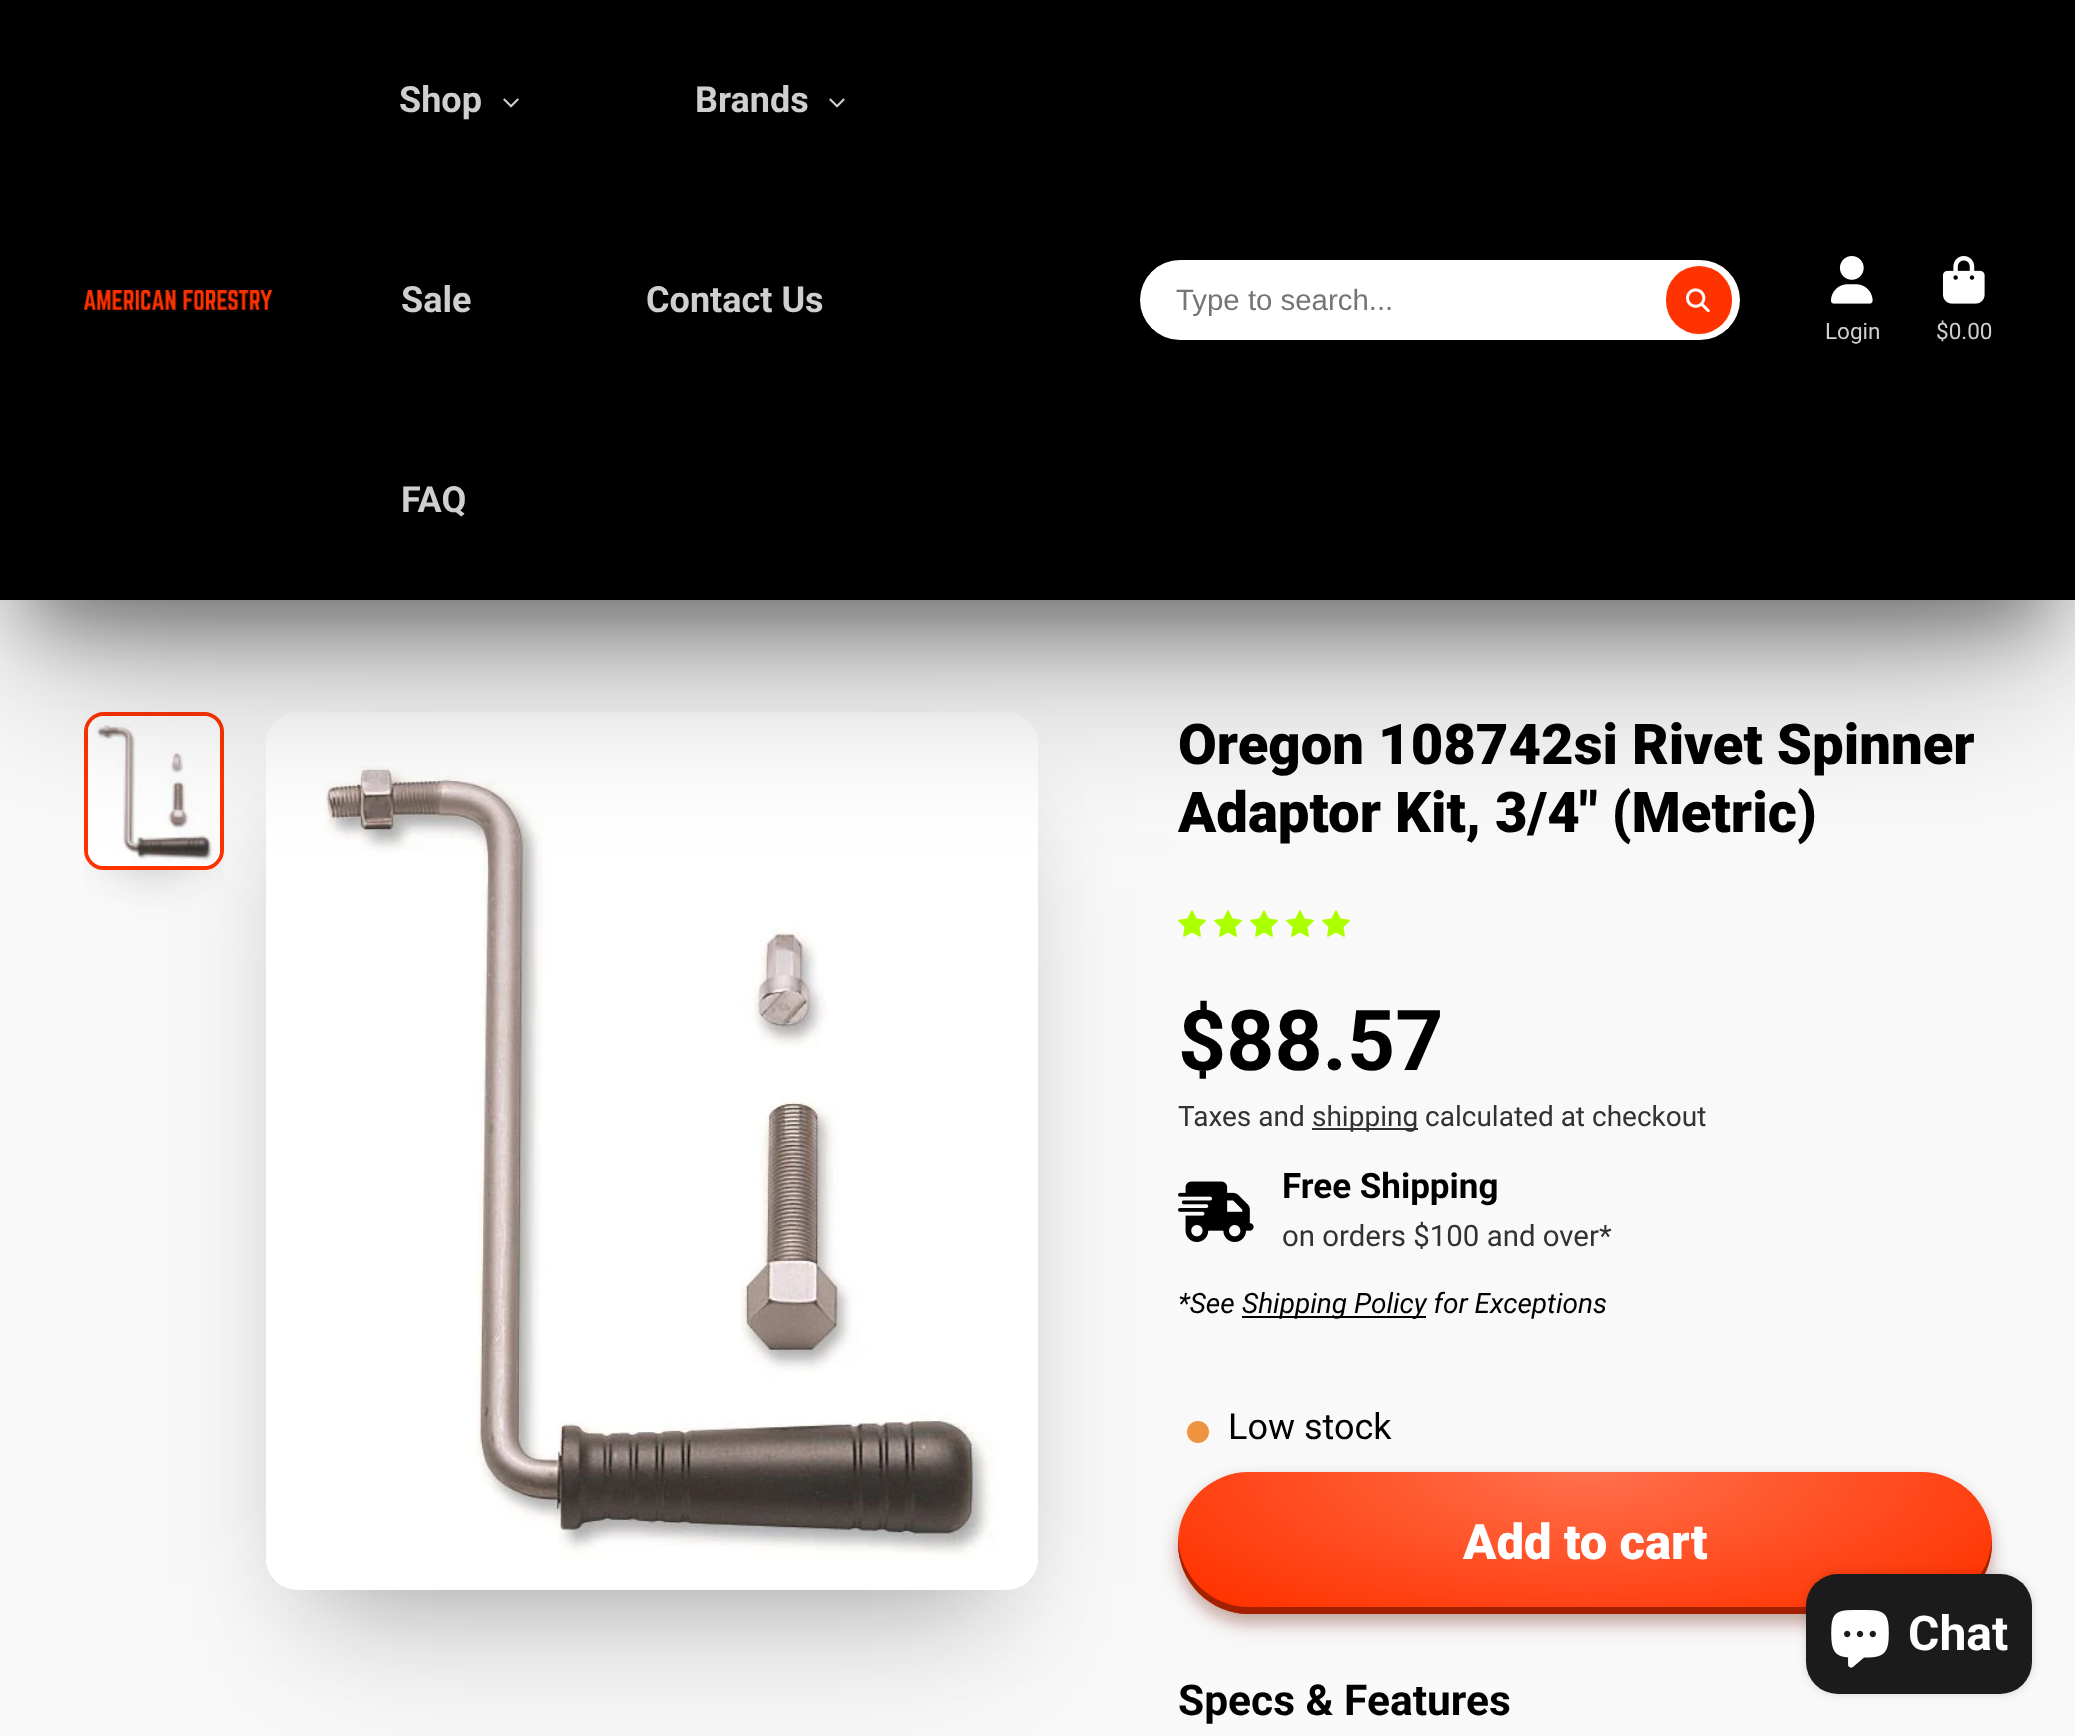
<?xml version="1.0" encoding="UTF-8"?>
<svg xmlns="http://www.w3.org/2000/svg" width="2075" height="1736">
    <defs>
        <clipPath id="clip1"><rect x="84" y="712" width="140" height="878"/></clipPath>
        <filter id="blur1" x="-50%" y="-200%" width="200%" height="500%"><feGaussianBlur stdDeviation="28"/></filter>
        <filter id="blur2" x="-50%" y="-200%" width="200%" height="500%"><feGaussianBlur stdDeviation="52.5"/></filter>
        <filter id="blur3" x="-50%" y="-200%" width="200%" height="500%"><feGaussianBlur stdDeviation="87.5"/></filter>
        <filter id="blur4" x="-50%" y="-200%" width="200%" height="500%"><feGaussianBlur stdDeviation="38.5"/></filter>
        <clipPath id="clip2"><rect x="1176" y="284" width="530" height="32"/></clipPath>
        <filter id="blur5" x="-50%" y="-200%" width="200%" height="500%"><feGaussianBlur stdDeviation="14.5"/></filter>
        <filter id="blur6" x="-50%" y="-200%" width="200%" height="500%"><feGaussianBlur stdDeviation="7.5"/></filter>
        <clipPath id="clip3"><rect x="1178" y="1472" width="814" height="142" rx="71"/></clipPath>
        <radialGradient id="g1" gradientUnits="userSpaceOnUse" cx="0" cy="0" r="1" gradientTransform="matrix(576 0 0 201 1585 1472)"><stop offset="0" stop-color="#FF704D"/><stop offset="0.9" stop-color="#FF3300"/></radialGradient>
        <filter id="blur7" x="-50%" y="-200%" width="200%" height="500%"><feGaussianBlur stdDeviation="5"/></filter>
    </defs>
    <rect width="100%" height="100%" fill="#F9F9F9"/>
    <g clip-path="url(#clip1)">
        <rect x="112" y="754" width="84" height="102" fill="#000000" fill-opacity="0.3" filter="url(#blur1)"/>
    </g>
    <rect x="126" y="782" width="56" height="74" fill="#000000" fill-opacity="0.1" filter="url(#blur1)"/>
    <rect x="86" y="714" width="136" height="154" rx="18" fill="none" stroke="#FF3300" stroke-width="4"/>
    <image x="88" y="716" width="132" height="150" href="img_07.png"/>
    <rect x="318" y="818" width="668" height="772" fill="#000000" fill-opacity="0.3" filter="url(#blur2)"/>
    <rect x="302" y="834" width="702" height="808" fill="#000000" fill-opacity="0.1" filter="url(#blur3)"/>
    <rect x="266" y="712" width="772" height="878" rx="32" fill="#FFFFFF"/>
    <rect x="28" y="80" width="2020" height="544" fill="#000000" fill-opacity="0.4" filter="url(#blur4)"/>
    <image x="266" y="766" width="772" height="820" href="img_06.png"/>
    <image x="1178" y="910" width="28" height="27" href="img_08.png"/>
    <image x="1214" y="910" width="28" height="27" href="img_09.png"/>
    <image x="1250" y="910" width="28" height="27" href="img_10.png"/>
    <image x="1286" y="910" width="28" height="27" href="img_11.png"/>
    <image x="1322" y="910" width="28" height="27" href="img_11.png"/>
    <rect x="28" y="116" width="2020" height="544" fill="#000000" fill-opacity="0.3" filter="url(#blur3)"/>
    <rect x="0" y="0" width="2075" height="600" fill="#000000"/>
    <image x="84" y="290" width="189" height="20" href="img_01.png"/>
    <text x="399" y="112" font-family="Roboto" font-size="36" font-weight="700" fill="#CFCFCF">Shop</text>
    <image x="503" y="98" width="16" height="10" href="img_02.png"/>
    <text x="695" y="112" font-family="Roboto" font-size="36" font-weight="700" fill="#CFCFCF">Brands</text>
    <image x="829" y="98" width="16" height="10" href="img_02.png"/>
    <text x="401" y="312" font-family="Roboto" font-size="36" font-weight="700" fill="#CFCFCF">Sale</text>
    <text x="646" y="312" font-family="Roboto" font-size="36" font-weight="700" fill="#CFCFCF">Contact Us</text>
    <text x="401" y="512" font-family="Roboto" font-size="36" font-weight="700" fill="#CFCFCF">FAQ</text>
    <rect x="1140" y="260" width="600" height="80" rx="40" fill="#FFFFFF"/>
    <g clip-path="url(#clip2)">
        <text x="1176" y="310" font-family="Liberation Sans" font-size="29.4" fill="#757575">Type to search...</text>
    </g>
    <rect x="1666" y="266" width="66" height="68" rx="33" fill="#FF3300"/>
    <image x="1686" y="288" width="24" height="24" href="img_03.png"/>
    <image x="1831" y="256" width="42" height="48" href="img_04.png"/>
    <text x="1825" y="339" font-family="Roboto" font-size="22.5" fill="#CFCFCF">Login</text>
    <image x="1942" y="256" width="43" height="48" href="img_05.png"/>
    <text x="1936" y="339" font-family="Roboto" font-size="22.5" fill="#CFCFCF">$0.00</text>
    <text font-family="Roboto" font-size="56.25" font-weight="900" fill="#000000">
        <tspan x="1178" y="764">Oregon 108742si Rivet Spinner</tspan>
        <tspan x="1178" y="832">Adaptor Kit, 3/4" (Metric)</tspan>
    </text>
    <text x="1178" y="1070" font-family="Roboto" font-size="84" font-weight="700" fill="#000000">$88.57</text>
    <text x="1178" y="1126" font-family="Roboto" font-size="28" fill="#323232">Taxes and</text>
    <rect x="1312" y="1128" width="106" height="2" fill="#323232"/>
    <text x="1312" y="1126" font-family="Roboto" font-size="28" fill="#323232">shipping calculated at checkout</text>
    <image x="1178" y="1181" width="76" height="61" href="img_12.png"/>
    <text x="1282" y="1198" font-family="Roboto" font-size="35" font-weight="700" fill="#000000">Free Shipping</text>
    <text x="1282" y="1246" font-family="Roboto" font-size="29.4" fill="#323232">on orders $100 and over*</text>
    <text x="1178" y="1313" font-family="Roboto" font-size="28" font-style="italic" fill="#000000">*See</text>
    <rect x="1242" y="1316" width="184" height="2" fill="#000000"/>
    <text x="1242" y="1313" font-family="Roboto" font-size="28" font-style="italic" fill="#000000">Shipping Policy for Exceptions</text>
    <circle cx="1198" cy="1432" r="10" fill="#EE9441" stroke="#EE9441" stroke-width="2"/>
    <text x="1228" y="1439" font-family="Roboto" font-size="36" fill="#000000">Low stock</text>
    <rect x="1186" y="1494" width="798" height="128" rx="64" fill="#661400" fill-opacity="0.15" filter="url(#blur5)"/>
    <rect x="1178" y="1480" width="814" height="142" rx="71" fill="#661400" fill-opacity="0.3" filter="url(#blur6)"/>
    <g clip-path="url(#clip3)">
        <rect x="1186" y="1494" width="798" height="128" rx="64" fill="#661400" fill-opacity="0.15" filter="url(#blur5)"/>
        <rect x="1178" y="1480" width="814" height="142" rx="71" fill="#661400" fill-opacity="0.3" filter="url(#blur6)"/>
    </g>
    <rect x="1178" y="1472" width="814" height="142" rx="71" fill="url(#g1)"/>
    <path d="M 1178 1539 V 1543 C 1178 1582 1210 1614 1249 1614 H 1921 C 1960 1614 1992 1582 1992 1543 V 1539 C 1990 1577 1959 1607 1921 1607 H 1249 C 1211 1607 1180 1577 1178 1539 Z" fill="#A32100"/>
    <text x="1463" y="1559" font-family="Roboto" font-size="49" font-weight="900" fill="#FFFFFF">Add to cart</text>
    <text x="1178" y="1715" font-family="Roboto" font-size="42.5" font-weight="700" fill="#000000">Specs &amp; Features</text>
    <rect x="1806" y="1574" width="226" height="120" rx="32" fill="#000000" fill-opacity="0.15" filter="url(#blur7)"/>
    <rect x="1806" y="1574" width="226" height="120" rx="32" fill="#1B1B1B"/>
    <image x="1831" y="1610" width="58" height="58" href="img_13.png"/>
    <text x="1908" y="1650" font-family="Roboto" font-size="48" font-weight="700" fill="#FFFFFF">Chat</text>
</svg>
